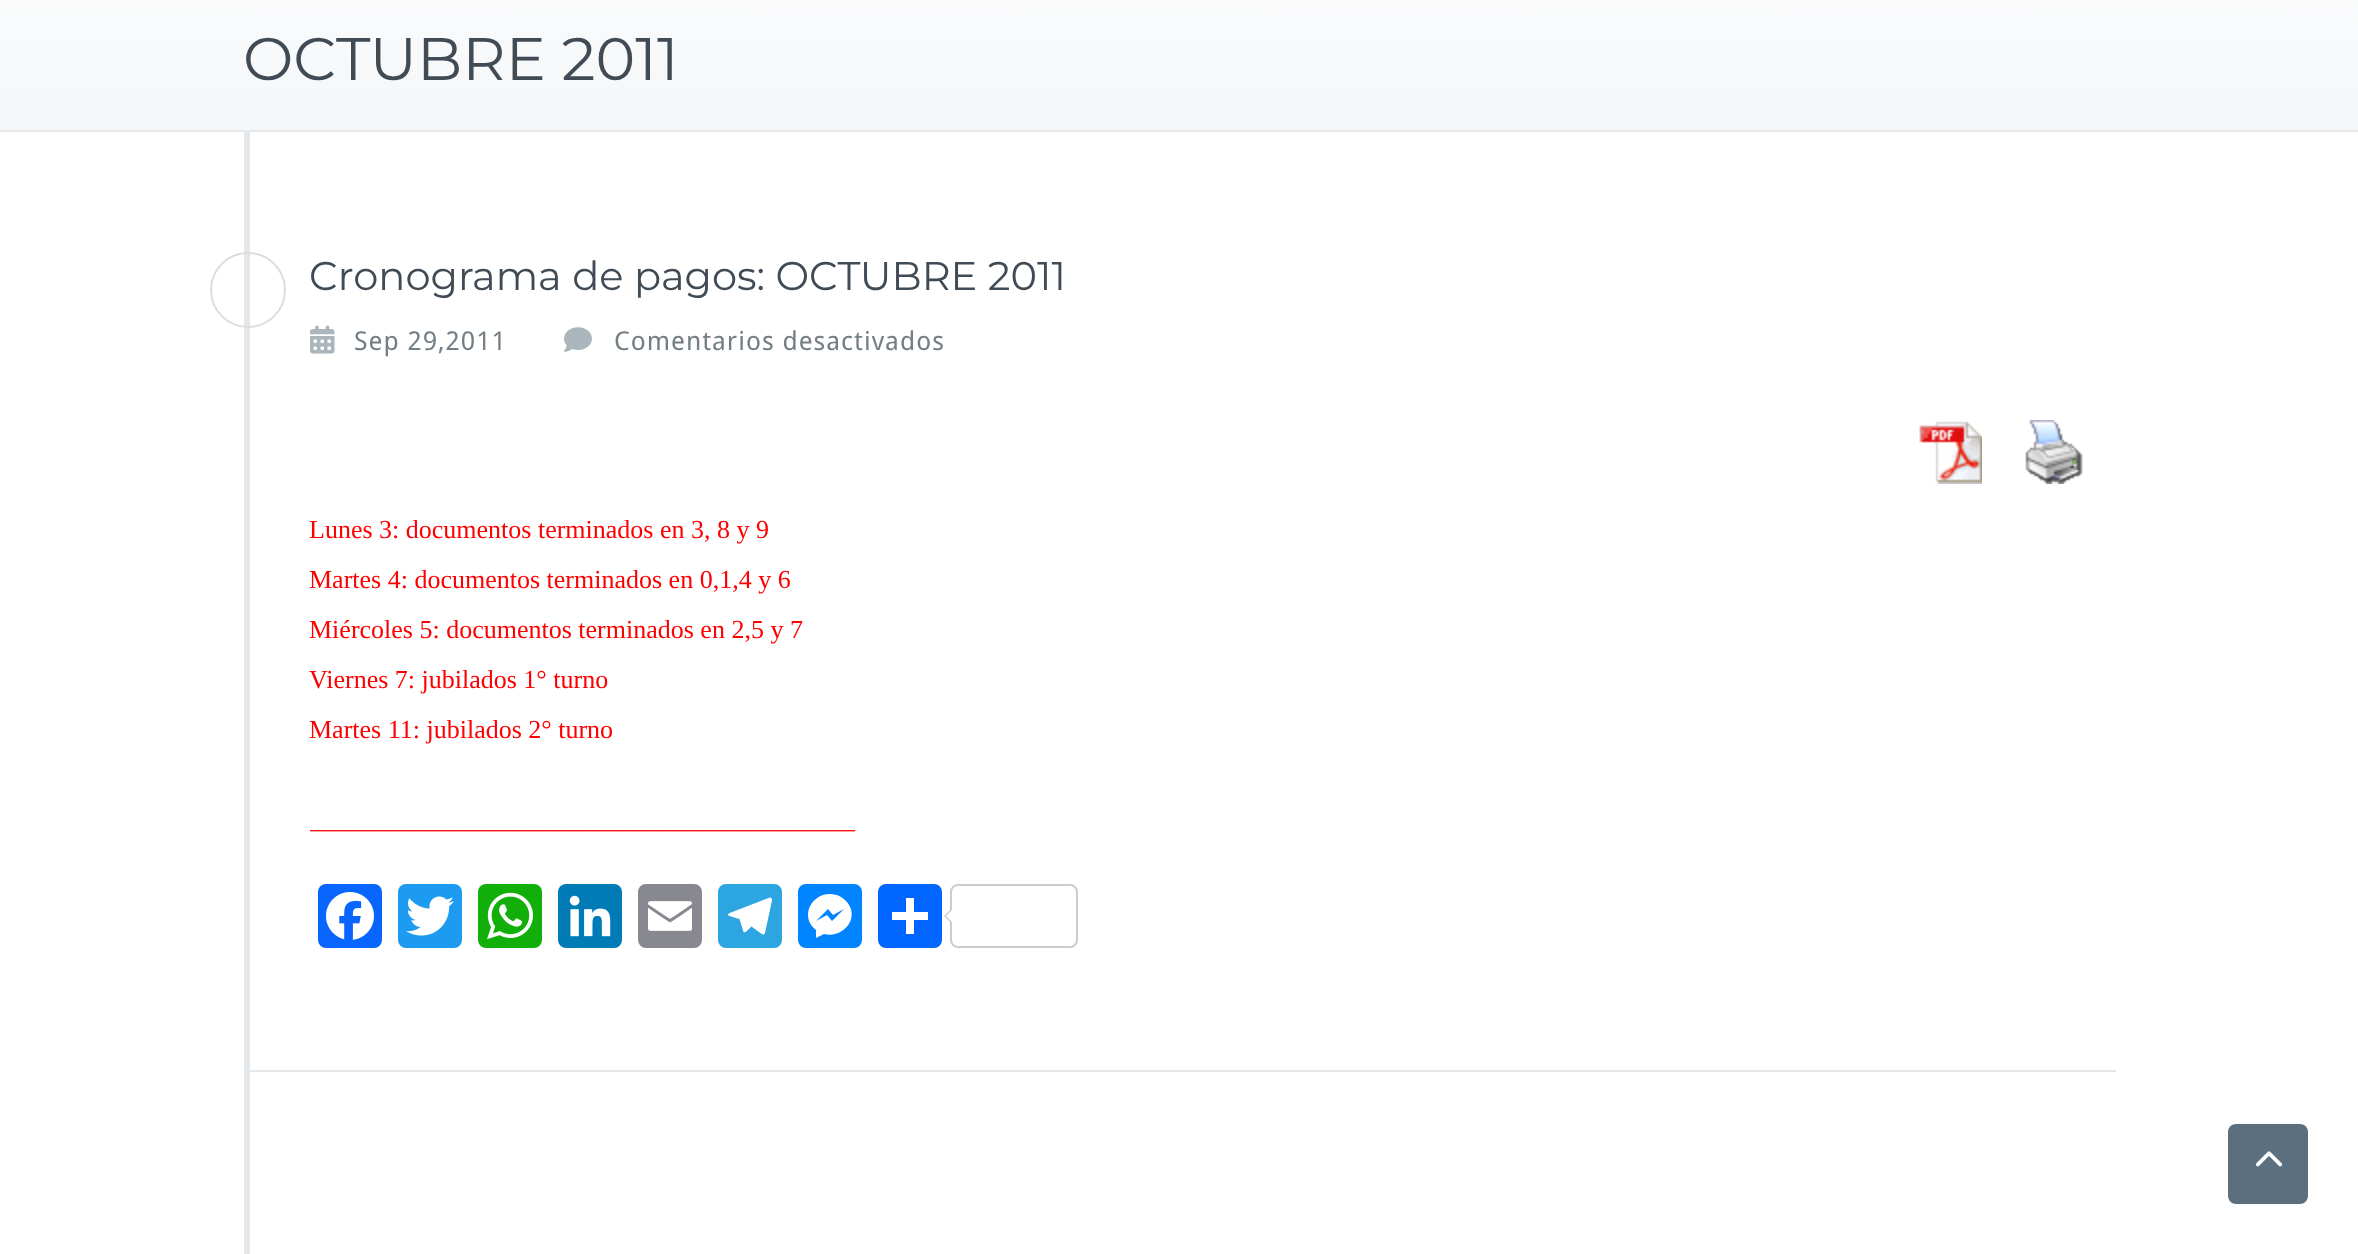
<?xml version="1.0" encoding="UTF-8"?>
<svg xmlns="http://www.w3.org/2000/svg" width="2358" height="1254">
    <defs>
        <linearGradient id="g1" gradientUnits="userSpaceOnUse" x1="1179" y1="-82" x2="1179" y2="130"><stop offset="0" stop-color="#FEFEFF"/><stop offset="1" stop-color="#F4F6F7"/></linearGradient>
        <clipPath id="clip1"><rect x="310" y="400" width="1806" height="590"/></clipPath>
    </defs>
    <rect width="100%" height="100%" fill="#FFFFFF"/>
    <rect x="0" y="0" width="2358" height="130" fill="url(#g1)"/>
    <rect x="0" y="130" width="2358" height="2" fill="#E4E8EA"/>
    <text x="243" y="80" font-family="Montserrat" font-size="60" fill="#404B56">OCTUBRE 2011</text>
    <rect x="244" y="132" width="6" height="1122" fill="#E4E8EA"/>
    <rect x="250" y="1070" width="1866" height="2" fill="#E4E8EA"/>
    <circle cx="248" cy="290" r="37" fill="none" stroke="#DDDDDD" stroke-width="2"/>
    <text x="309" y="290" font-family="Montserrat" font-size="40" fill="#404B56">Cronograma de pagos: OCTUBRE 2011</text>
    <image x="310" y="325" width="25" height="29" href="img_01.png"/>
    <text x="354" y="350" font-family="Droid Sans" font-size="26" letter-spacing="1" fill="#737F85">Sep 29,2011</text>
    <image x="564" y="327" width="28" height="25" href="img_02.png"/>
    <text x="614" y="350" font-family="Droid Sans" font-size="26" letter-spacing="1" fill="#737F85">Comentarios desactivados</text>
    <image x="1919" y="421" width="63" height="63" href="img_03.png"/>
    <image x="2025" y="420" width="58" height="64" href="img_04.png"/>
    <text font-family="Liberation Serif" font-size="26" fill="#FF0000">
        <tspan x="309" y="538">Lunes 3: documentos terminados en 3, 8 y 9</tspan>
        <tspan x="309" y="588">Martes 4: documentos terminados en 0,1,4 y 6</tspan>
        <tspan x="309" y="638">Miércoles 5: documentos terminados en 2,5 y 7</tspan>
        <tspan x="309" y="688">Viernes 7: jubilados 1° turno</tspan>
        <tspan x="309" y="738">Martes 11: jubilados 2° turno</tspan>
    </text>
    <g clip-path="url(#clip1)">
        <text x="309" y="828" font-family="Liberation Serif" font-size="26" fill="#FF0000">__________________________________________</text>
    </g>
    <rect x="318" y="884" width="64" height="64" rx="8" fill="#0866FF"/>
    <image x="326" y="892" width="48" height="48" href="img_05.png"/>
    <rect x="398" y="884" width="64" height="64" rx="8" fill="#1D9BF0"/>
    <image x="406" y="896" width="48" height="40" href="img_06.png"/>
    <rect x="478" y="884" width="64" height="64" rx="8" fill="#12AF0A"/>
    <image x="487" y="892" width="46" height="48" href="img_07.png"/>
    <rect x="558" y="884" width="64" height="64" rx="8" fill="#007BB5"/>
    <image x="569" y="895" width="42" height="42" href="img_08.png"/>
    <rect x="638" y="884" width="64" height="64" rx="8" fill="#888990"/>
    <image x="648" y="901" width="44" height="30" href="img_09.png"/>
    <rect x="718" y="884" width="64" height="64" rx="8" fill="#2CA5E0"/>
    <image x="728" y="897" width="44" height="38" href="img_10.png"/>
    <rect x="798" y="884" width="64" height="64" rx="8" fill="#0084FF"/>
    <path d="M 830 894 C 810 894 800 918 816 930 V 938 L 824 934 C 844 939 862 916 845 900 C 841 896 836 894 830 894 M 832 921 L 827 915 L 816 921 L 828 909 L 833 915 L 844 909 Z" fill="#FFFFFF"/>
    <rect x="878" y="884" width="64" height="64" rx="8" fill="#0166FF"/>
    <rect x="906" y="898" width="8" height="36" fill="#FFFFFF"/>
    <rect x="892" y="912" width="36" height="8" fill="#FFFFFF"/>
    <rect x="951" y="885" width="126" height="62" rx="7" fill="none" stroke="#CCCCCC" stroke-width="2"/>
    <path d="M 952 908 V 924 L 944 916 Z" fill="#CCCCCC"/>
    <path d="M 954 908 V 924 L 946 916 Z" fill="#FFFFFF"/>
    <rect x="2228" y="1124" width="80" height="80" rx="8" fill="#5B6F7F"/>
    <image x="2255" y="1151" width="28" height="16" href="img_11.png"/>
</svg>
